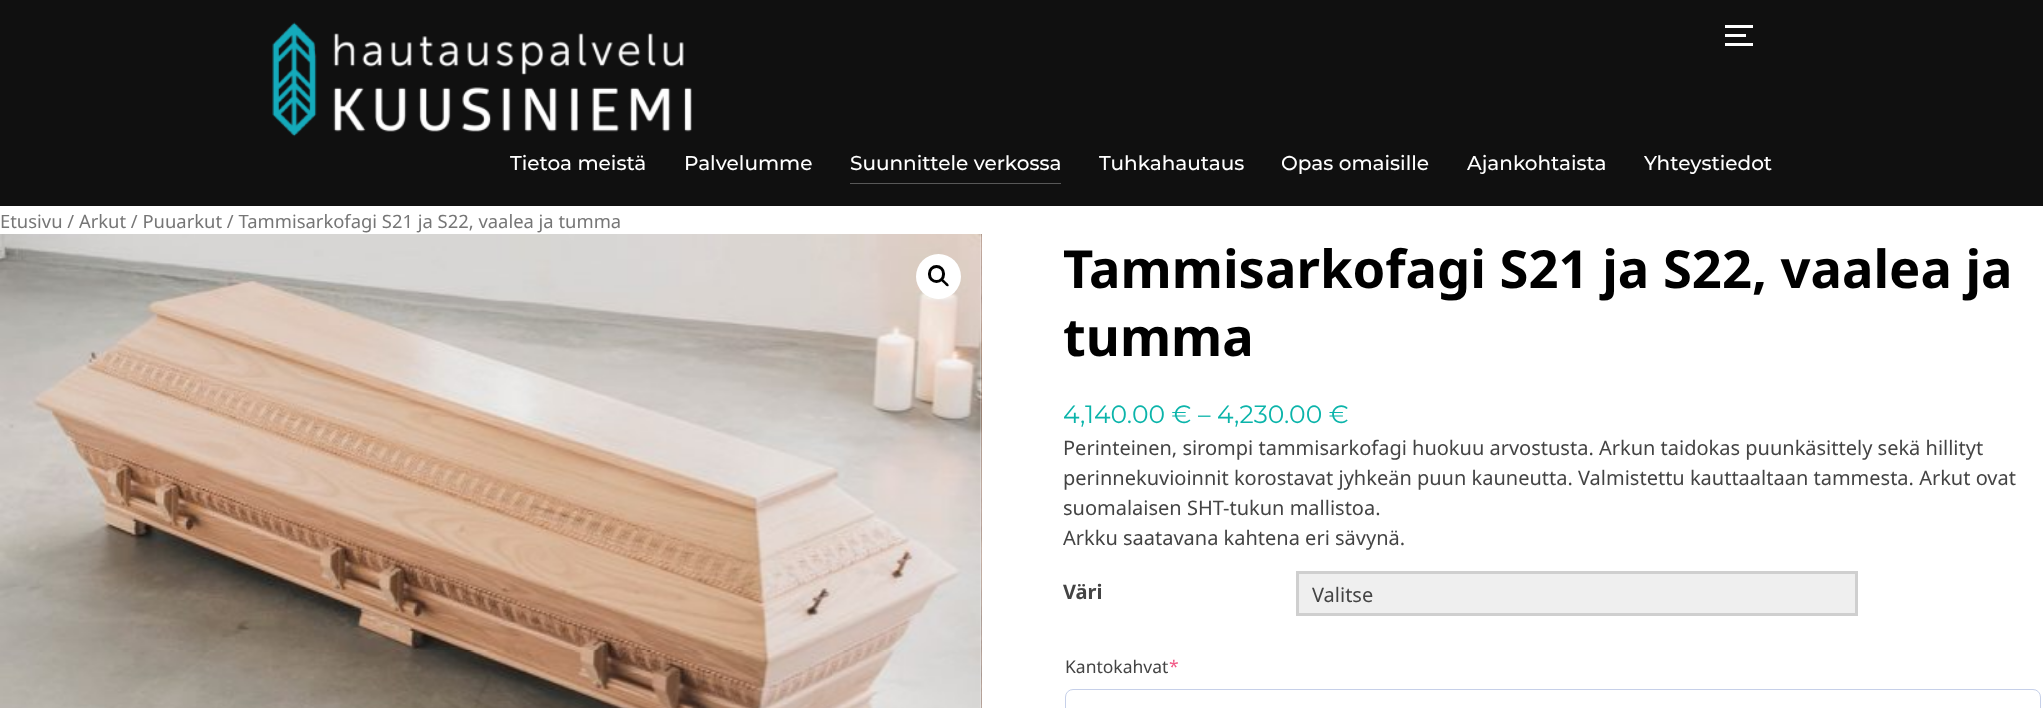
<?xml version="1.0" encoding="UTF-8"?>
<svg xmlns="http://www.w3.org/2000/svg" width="2043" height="708">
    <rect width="100%" height="100%" fill="#FFFFFF"/>
    <rect x="0" y="0" width="2043" height="206" fill="#101010"/>
    <image x="272" y="22" width="420" height="115" href="img_01.png"/>
    <rect x="1725" y="25" width="28" height="3" fill="#FFFFFF"/>
    <rect x="1725" y="34" width="21" height="3" fill="#FFFFFF"/>
    <rect x="1725" y="43" width="28" height="3" fill="#FFFFFF"/>
    <text x="510" y="170" font-family="Montserrat" font-size="20" font-weight="500" fill="#FFFFFF">Tietoa meistä</text>
    <text x="684" y="170" font-family="Montserrat" font-size="20" font-weight="500" fill="#FFFFFF">Palvelumme</text>
    <rect x="850" y="183" width="211" height="1" fill="#585858"/>
    <text x="850" y="170" font-family="Montserrat" font-size="20" font-weight="500" fill="#FFFFFF">Suunnittele verkossa</text>
    <text x="1099" y="170" font-family="Montserrat" font-size="20" font-weight="500" fill="#FFFFFF">Tuhkahautaus</text>
    <text x="1281" y="170" font-family="Montserrat" font-size="20" font-weight="500" fill="#FFFFFF">Opas omaisille</text>
    <text x="1467" y="170" font-family="Montserrat" font-size="20" font-weight="500" fill="#FFFFFF">Ajankohtaista</text>
    <text x="1644" y="170" font-family="Montserrat" font-size="20" font-weight="500" fill="#FFFFFF">Yhteystiedot</text>
    <text x="0" y="228" font-family="Noto Sans" font-size="18.4" fill="#767676">Etusivu / Arkut / Puuarkut / Tammisarkofagi S21 ja S22, vaalea ja tumma</text>
    <image x="981" y="234" width="1" height="474" href="img_03.png"/>
    <image x="0" y="234" width="982" height="474" href="img_02.png"/>
    <circle cx="938.5" cy="276.5" r="22.5" fill="#FFFFFF"/>
    <rect x="929.5" y="266.5" width="14" height="15" rx="7" fill="none" stroke="#000000" stroke-width="3"/>
    <path d="M 941 279 C 942.5 277.5 945 281 945.5 281.5 C 946.5 282.5 949.5 284.5 948.5 286 C 947 287.5 944.5 284 944 283.5 C 943 282.5 940 280.5 941 279 Z" fill="#000000"/>
    <text font-family="Noto Sans" font-size="52.5" font-weight="700" fill="#000000">
        <tspan x="1063" y="288">Tammisarkofagi S21 ja S22, vaalea ja</tspan>
        <tspan x="1063" y="356">tumma</tspan>
    </text>
    <text x="1063" y="423" font-family="Montserrat" font-size="25" fill="#0BB4AA">4,140.00 € – 4,230.00 €</text>
    <text font-family="Noto Sans" font-size="20" fill="#444444">
        <tspan x="1063" y="455">Perinteinen, sirompi tammisarkofagi huokuu arvostusta. Arkun taidokas puunkäsittely sekä hillityt</tspan>
        <tspan x="1063" y="485">perinnekuvioinnit korostavat jyhkeän puun kauneutta. Valmistettu kauttaaltaan tammesta. Arkut ovat</tspan>
        <tspan x="1063" y="515">suomalaisen SHT-tukun mallistoa.</tspan>
        <tspan x="1063" y="545">Arkku saatavana kahtena eri sävynä.</tspan>
    </text>
    <text x="1063" y="599" font-family="Noto Sans" font-size="20" font-weight="700" fill="#444444">Väri</text>
    <rect x="1297.5" y="572.5" width="559" height="42" fill="#EFEFEF" stroke="#CFCFCF" stroke-width="3"/>
    <text x="1312" y="602" font-family="Noto Sans" font-size="20" fill="#444444">Valitse</text>
    <text x="1065" y="673" font-family="Noto Sans" font-size="17.5" fill="#444444">Kantokahvat</text>
    <text x="1169" y="673" font-family="Noto Sans" font-size="17.5" fill="#F25A87">*</text>
    <rect x="1065.5" y="689.5" width="975" height="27" rx="7.5" fill="none" stroke="#C6D0E9"/>
</svg>
